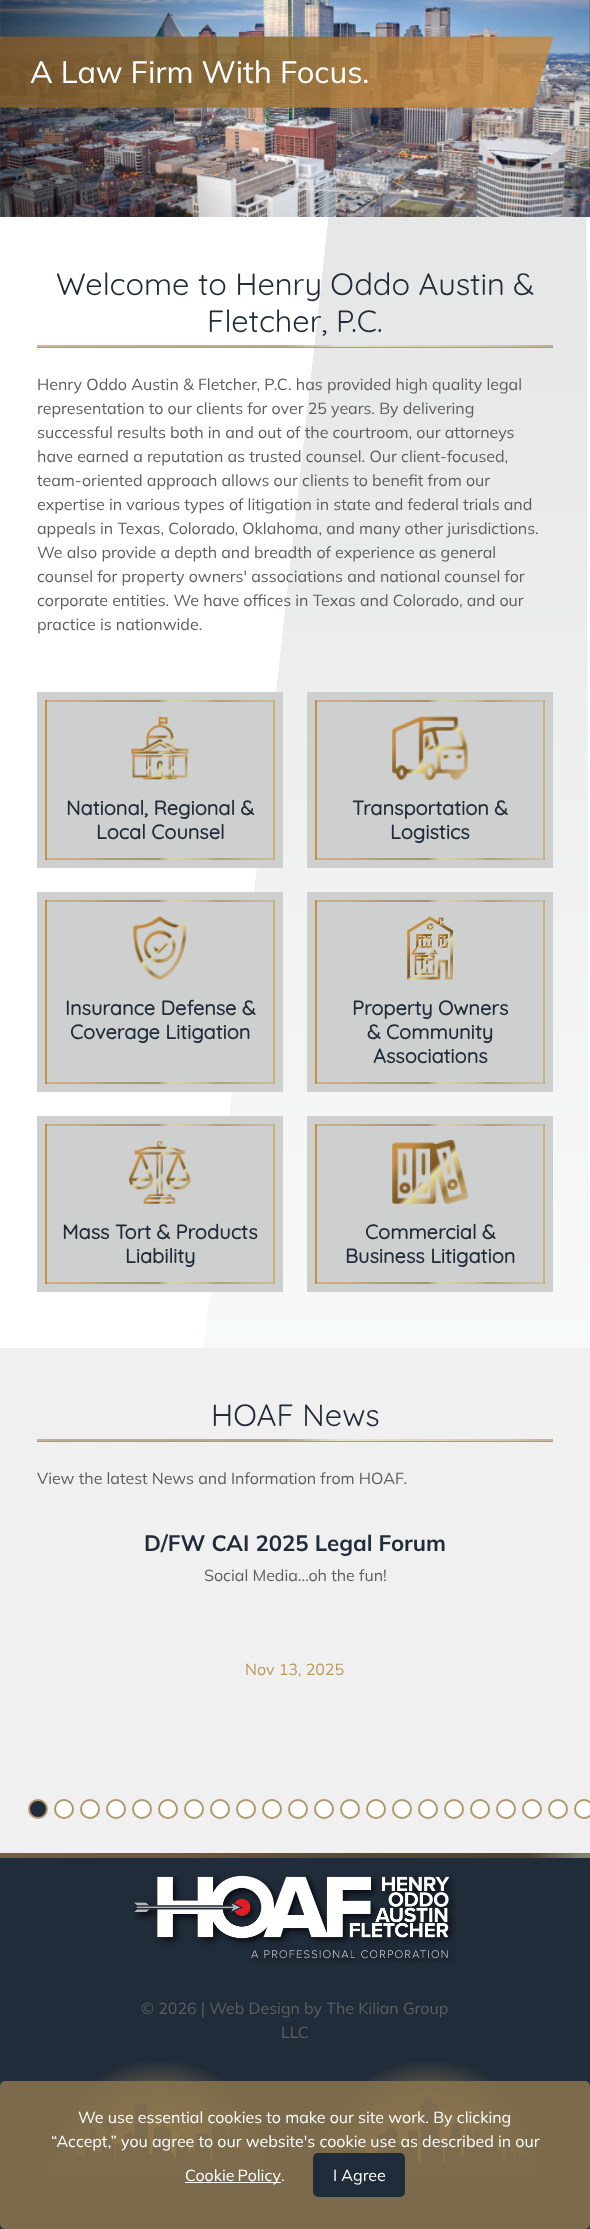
<?xml version="1.0" encoding="UTF-8"?>
<svg xmlns="http://www.w3.org/2000/svg" width="590" height="2229">
    <rect width="100%" height="100%" fill="#212C3A"/>
    <image x="0" y="0" width="590" height="217" href="img_01.png"/>
    <image x="0" y="36" width="554" height="72" href="img_02.png"/>
    <text x="30" y="83" font-family="Mulish" font-size="30.8" fill="#FFFFFF">A Law Firm With Focus.</text>
    <rect x="0" y="217" width="590" height="1131" fill="#FFFFFF"/>
    <image x="204" y="217" width="385" height="1131" href="img_03.png"/>
    <image x="37" y="345" width="516" height="2" href="img_04.png"/>
    <rect x="37" y="347" width="516" height="1" fill="#BC9958"/>
    <text x="56" y="295" font-family="Quicksand" font-size="30.8" fill="#212C3A">Welcome to Henry Oddo Austin &amp;</text>
    <text x="207" y="332" font-family="Quicksand" font-size="30.8" fill="#212C3A">Fletcher, P.C.</text>
    <text font-family="Mulish" font-size="16" fill="#5E5E5E">
        <tspan x="37" y="390">Henry Oddo Austin &amp; Fletcher, P.C. has provided high quality legal</tspan>
        <tspan x="37" y="414">representation to our clients for over 25 years. By delivering</tspan>
        <tspan x="37" y="438">successful results both in and out of the courtroom, our attorneys</tspan>
        <tspan x="37" y="462">have earned a reputation as trusted counsel. Our client-focused,</tspan>
        <tspan x="37" y="486">team-oriented approach allows our clients to benefit from our</tspan>
        <tspan x="37" y="510">expertise in various types of litigation in state and federal trials and</tspan>
        <tspan x="37" y="534">appeals in Texas, Colorado, Oklahoma, and many other jurisdictions.</tspan>
        <tspan x="37" y="558">We also provide a depth and breadth of experience as general</tspan>
        <tspan x="37" y="582">counsel for property owners' associations and national counsel for</tspan>
        <tspan x="37" y="606">corporate entities. We have offices in Texas and Colorado, and our</tspan>
        <tspan x="37" y="630">practice is nationwide.</tspan>
    </text>
    <rect x="37" y="692" width="246" height="176" fill="#CECFCF"/>
    <rect x="273" y="700" width="2" height="160" fill="#C9B07C"/>
    <rect x="45" y="700" width="2" height="160" fill="#C5913F"/>
    <image x="131" y="716" width="58" height="64" href="img_06.png"/>
    <text x="66" y="815" font-family="Quicksand" font-size="20" font-weight="700" fill="#212C3A">National, Regional &amp;</text>
    <text x="96" y="839" font-family="Quicksand" font-size="20" font-weight="700" fill="#212C3A">Local Counsel</text>
    <image x="47" y="700" width="226" height="160" href="img_05.png"/>
    <rect x="307" y="692" width="246" height="176" fill="#CECFCF"/>
    <rect x="543" y="700" width="2" height="160" fill="#C9B07C"/>
    <rect x="315" y="700" width="2" height="160" fill="#C5913F"/>
    <image x="392" y="716" width="76" height="64" href="img_08.png"/>
    <text x="352" y="815" font-family="Quicksand" font-size="20" font-weight="700" fill="#212C3A">Transportation &amp;</text>
    <text x="390" y="839" font-family="Quicksand" font-size="20" font-weight="700" fill="#212C3A">Logistics</text>
    <image x="317" y="700" width="226" height="160" href="img_07.png"/>
    <rect x="37" y="892" width="246" height="200" fill="#CECFCF"/>
    <rect x="273" y="900" width="2" height="184" fill="#C9B07C"/>
    <rect x="45" y="900" width="2" height="184" fill="#C5913F"/>
    <image x="133" y="916" width="54" height="64" href="img_10.png"/>
    <text x="65" y="1015" font-family="Quicksand" font-size="20" font-weight="700" fill="#212C3A">Insurance Defense &amp;</text>
    <text x="70" y="1039" font-family="Quicksand" font-size="20" font-weight="700" fill="#212C3A">Coverage Litigation</text>
    <image x="47" y="900" width="226" height="184" href="img_09.png"/>
    <rect x="307" y="892" width="246" height="200" fill="#CECFCF"/>
    <rect x="543" y="900" width="2" height="184" fill="#C9B07C"/>
    <rect x="315" y="900" width="2" height="184" fill="#C5913F"/>
    <image x="407" y="916" width="46" height="64" href="img_12.png"/>
    <text x="352" y="1015" font-family="Quicksand" font-size="20" font-weight="700" fill="#212C3A">Property Owners</text>
    <text x="367" y="1039" font-family="Quicksand" font-size="20" font-weight="700" fill="#212C3A">&amp; Community</text>
    <text x="373" y="1063" font-family="Quicksand" font-size="20" font-weight="700" fill="#212C3A">Associations</text>
    <image x="317" y="900" width="226" height="184" href="img_11.png"/>
    <rect x="37" y="1116" width="246" height="176" fill="#CECFCF"/>
    <rect x="273" y="1124" width="2" height="160" fill="#C9B07C"/>
    <rect x="45" y="1124" width="2" height="160" fill="#C5913F"/>
    <image x="129" y="1140" width="62" height="64" href="img_14.png"/>
    <text x="62" y="1239" font-family="Quicksand" font-size="20" font-weight="700" fill="#212C3A">Mass Tort &amp; Products</text>
    <text x="125" y="1263" font-family="Quicksand" font-size="20" font-weight="700" fill="#212C3A">Liability</text>
    <image x="47" y="1124" width="226" height="160" href="img_13.png"/>
    <rect x="307" y="1116" width="246" height="176" fill="#CECFCF"/>
    <rect x="543" y="1124" width="2" height="160" fill="#C9B07C"/>
    <rect x="315" y="1124" width="2" height="160" fill="#C5913F"/>
    <image x="392" y="1140" width="76" height="64" href="img_16.png"/>
    <text x="365" y="1239" font-family="Quicksand" font-size="20" font-weight="700" fill="#212C3A">Commercial &amp;</text>
    <text x="345" y="1263" font-family="Quicksand" font-size="20" font-weight="700" fill="#212C3A">Business Litigation</text>
    <image x="317" y="1124" width="226" height="160" href="img_15.png"/>
    <rect x="0" y="1348" width="590" height="505" fill="#F0F0F0"/>
    <image x="37" y="1439" width="516" height="2" href="img_17.png"/>
    <rect x="37" y="1441" width="516" height="1" fill="#BC9958"/>
    <text x="211" y="1426" font-family="Quicksand" font-size="30.8" fill="#212C3A">HOAF News</text>
    <text x="37" y="1484" font-family="Mulish" font-size="16" fill="#5E5E5E">View the latest News and Information from HOAF.</text>
    <text x="144" y="1551" font-family="Mulish" font-size="22.2" font-weight="700" fill="#212C3A">D/FW CAI 2025 Legal Forum</text>
    <text x="204" y="1581" font-family="Mulish" font-size="16" fill="#5E5E5E">Social Media...oh the fun!</text>
    <text x="245" y="1675" font-family="Mulish" font-size="16" fill="#BC9958">Nov 13, 2025</text>
    <circle cx="38" cy="1809" r="9" fill="#212C3A" stroke="#B1976D" stroke-width="2"/>
    <circle cx="64" cy="1809" r="9" fill="#FFFFFF" stroke="#B1976D" stroke-width="2"/>
    <circle cx="90" cy="1809" r="9" fill="#FFFFFF" stroke="#B1976D" stroke-width="2"/>
    <circle cx="116" cy="1809" r="9" fill="#FFFFFF" stroke="#B1976D" stroke-width="2"/>
    <circle cx="142" cy="1809" r="9" fill="#FFFFFF" stroke="#B1976D" stroke-width="2"/>
    <circle cx="168" cy="1809" r="9" fill="#FFFFFF" stroke="#B1976D" stroke-width="2"/>
    <circle cx="194" cy="1809" r="9" fill="#FFFFFF" stroke="#B1976D" stroke-width="2"/>
    <circle cx="220" cy="1809" r="9" fill="#FFFFFF" stroke="#B1976D" stroke-width="2"/>
    <circle cx="246" cy="1809" r="9" fill="#FFFFFF" stroke="#B1976D" stroke-width="2"/>
    <circle cx="272" cy="1809" r="9" fill="#FFFFFF" stroke="#B1976D" stroke-width="2"/>
    <circle cx="298" cy="1809" r="9" fill="#FFFFFF" stroke="#B1976D" stroke-width="2"/>
    <circle cx="324" cy="1809" r="9" fill="#FFFFFF" stroke="#B1976D" stroke-width="2"/>
    <circle cx="350" cy="1809" r="9" fill="#FFFFFF" stroke="#B1976D" stroke-width="2"/>
    <circle cx="376" cy="1809" r="9" fill="#FFFFFF" stroke="#B1976D" stroke-width="2"/>
    <circle cx="402" cy="1809" r="9" fill="#FFFFFF" stroke="#B1976D" stroke-width="2"/>
    <circle cx="428" cy="1809" r="9" fill="#FFFFFF" stroke="#B1976D" stroke-width="2"/>
    <circle cx="454" cy="1809" r="9" fill="#FFFFFF" stroke="#B1976D" stroke-width="2"/>
    <circle cx="480" cy="1809" r="9" fill="#FFFFFF" stroke="#B1976D" stroke-width="2"/>
    <circle cx="506" cy="1809" r="9" fill="#FFFFFF" stroke="#B1976D" stroke-width="2"/>
    <circle cx="532" cy="1809" r="9" fill="#FFFFFF" stroke="#B1976D" stroke-width="2"/>
    <circle cx="558" cy="1809" r="9" fill="#FFFFFF" stroke="#B1976D" stroke-width="2"/>
    <circle cx="584" cy="1809" r="9" fill="#FFFFFF" stroke="#B1976D" stroke-width="2"/>
    <image x="0" y="1853" width="590" height="5" href="img_18.png"/>
    <image x="134" y="1875" width="322" height="88" href="img_19.png"/>
    <text x="141" y="2014" font-family="Mulish" font-size="16" fill="#5E5E5E">© 2026 | Web Design by The Kilian Group</text>
    <text x="281" y="2038" font-family="Mulish" font-size="16" fill="#5E5E5E">LLC</text>
    <image x="43" y="2061" width="232" height="118" href="img_20.png"/>
    <image x="312" y="2061" width="237" height="119" href="img_21.png"/>
    <rect x="0" y="2081" width="590" height="148" rx="5" fill="#87734D" fill-opacity="0.88"/>
    <text x="78" y="2123" font-family="Mulish" font-size="16" fill="#FFFFFF">We use essential cookies to make our site work. By clicking</text>
    <text x="51" y="2147" font-family="Mulish" font-size="16" fill="#FFFFFF">“Accept,” you agree to our website's cookie use as described in our</text>
    <rect x="185" y="2182" width="96" height="1" fill="#FFFFFF"/>
    <text x="185" y="2181" word-spacing="-1" font-family="Mulish" font-size="16" fill="#FFFFFF">Cookie Policy</text>
    <text x="281" y="2181" font-family="Mulish" font-size="16" fill="#FFFFFF">.</text>
    <rect x="313" y="2153" width="92" height="44" rx="5" fill="#212C3A"/>
    <text x="333" y="2181" font-family="Mulish" font-size="16" fill="#FFFFFF">I Agree</text>
</svg>
